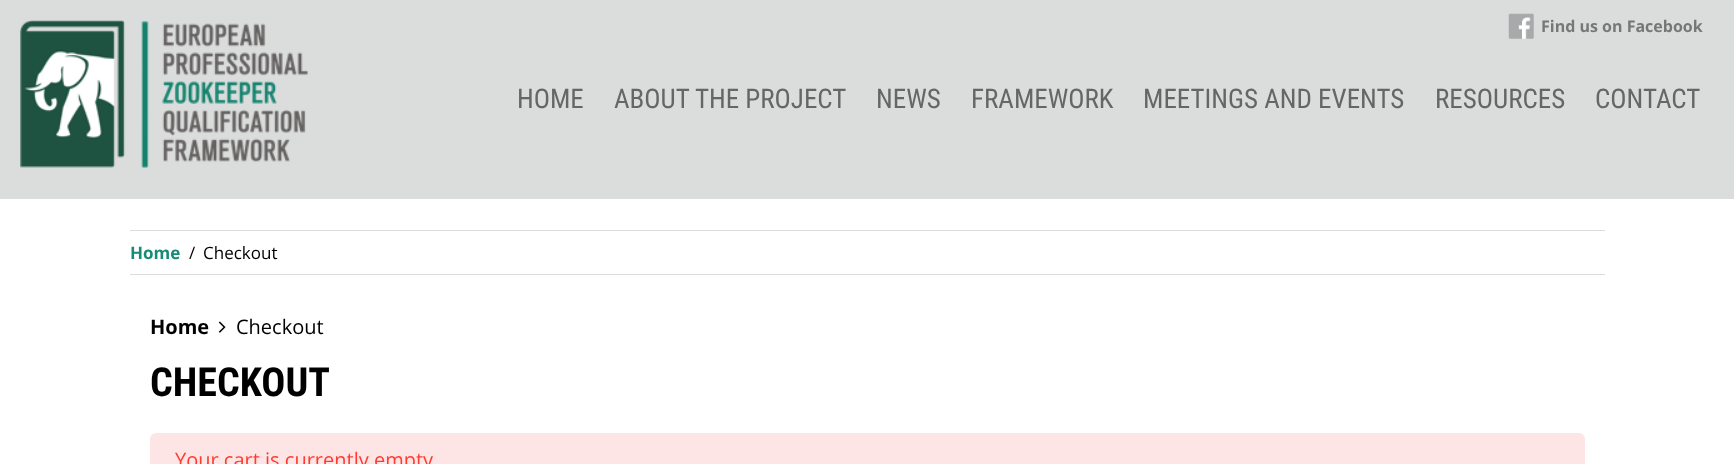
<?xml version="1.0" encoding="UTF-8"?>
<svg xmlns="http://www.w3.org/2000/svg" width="1734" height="464">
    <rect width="100%" height="100%" fill="#FFFFFF"/>
    <rect x="0" y="0" width="1734" height="199" fill="#DADDDC"/>
    <image x="20" y="20" width="288" height="148" href="img_01.png"/>
    <image x="1508" y="13" width="26" height="26" href="img_02.png"/>
    <text x="1541" y="32" font-family="Open Sans" font-size="16" font-weight="700" fill="#777777">Find us on Facebook</text>
    <text x="517" y="108" font-family="Roboto Condensed" font-size="27" fill="#666666">HOME</text>
    <text x="614" y="108" font-family="Roboto Condensed" font-size="27" fill="#666666">ABOUT THE PROJECT</text>
    <text x="876" y="108" font-family="Roboto Condensed" font-size="27" fill="#666666">NEWS</text>
    <text x="971" y="108" font-family="Roboto Condensed" font-size="27" fill="#666666">FRAMEWORK</text>
    <text x="1143" y="108" font-family="Roboto Condensed" font-size="27" fill="#666666">MEETINGS AND EVENTS</text>
    <text x="1435" y="108" font-family="Roboto Condensed" font-size="27" fill="#666666">RESOURCES</text>
    <text x="1595" y="108" font-family="Roboto Condensed" font-size="27" fill="#666666">CONTACT</text>
    <rect x="130" y="230" width="1475" height="1" fill="#DDDDDD"/>
    <rect x="130" y="274" width="1475" height="1" fill="#DDDDDD"/>
    <text x="130" y="259" font-family="Open Sans" font-size="17" font-weight="700" fill="#168B75">Home</text>
    <text x="189" y="259" font-family="Open Sans" font-size="17" fill="#000000">/</text>
    <text x="203" y="259" font-family="Open Sans" font-size="17" fill="#000000">Checkout</text>
    <text x="150" y="334" font-family="Open Sans" font-size="20" font-weight="700" fill="#000000">Home</text>
    <image x="218" y="321" width="8" height="12" href="img_03.png"/>
    <text x="236" y="334" font-family="Open Sans" font-size="20" fill="#000000">Checkout</text>
    <text x="150" y="396" font-family="Roboto Condensed" font-size="40" font-weight="700" fill="#000000">CHECKOUT</text>
    <rect x="150" y="433" width="1435" height="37" rx="6" fill="#FEE5E5"/>
    <text x="175" y="467" font-family="Open Sans" font-size="20" fill="#FF3B30">Your cart is currently empty</text>
</svg>
